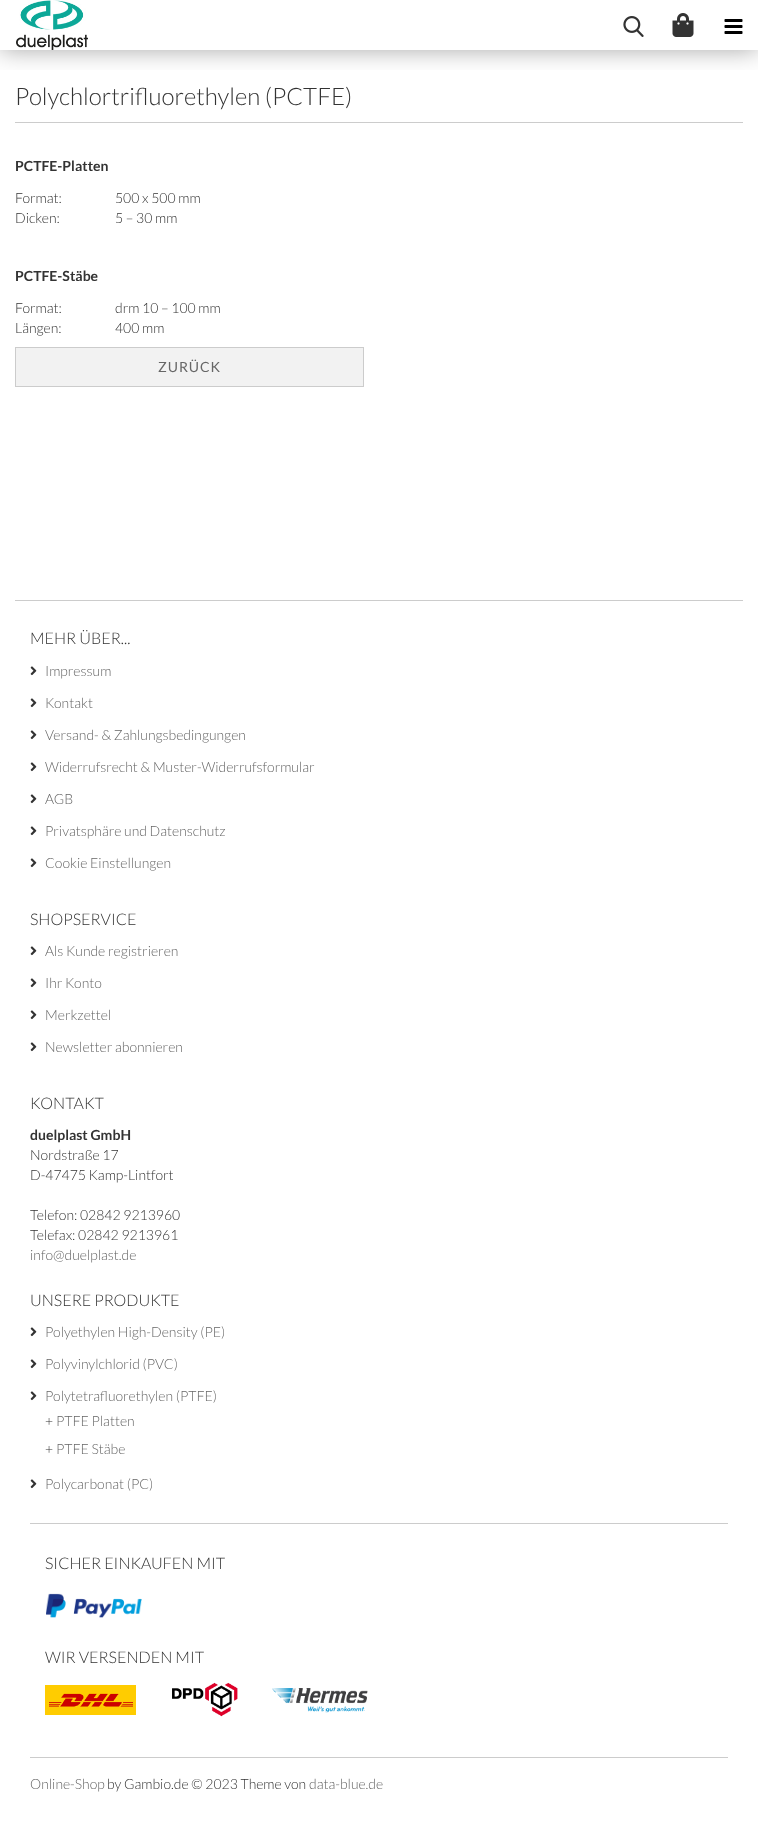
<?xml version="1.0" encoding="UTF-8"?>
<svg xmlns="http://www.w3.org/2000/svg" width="758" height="1823">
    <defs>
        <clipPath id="clip1"><rect x="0" y="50" width="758" height="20"/></clipPath>
        <filter id="blur1" x="-50%" y="-200%" width="200%" height="500%"><feGaussianBlur stdDeviation="12.5"/></filter>
    </defs>
    <rect width="100%" height="100%" fill="#FFFFFF"/>
    <g clip-path="url(#clip1)">
        <rect x="0" y="0" width="758" height="50" fill="#000000" fill-opacity="0.35" filter="url(#blur1)"/>
    </g>
    <image x="16" y="0" width="72" height="50" href="img_01.png"/>
    <image x="623" y="16" width="21" height="21" href="img_02.png"/>
    <image x="672" y="13" width="22" height="24" href="img_03.png"/>
    <image x="724" y="19" width="19" height="15" href="img_04.png"/>
    <rect x="15" y="122" width="728" height="1" fill="#CCCCCC"/>
    <text x="15" y="105" font-family="Lato" font-size="24" font-weight="300" fill="#333333">Polychlortrifluorethylen (PCTFE)</text>
    <text x="15" y="171" font-family="Lato" font-size="14" font-weight="700" fill="#333333">PCTFE-Platten</text>
    <text x="15" y="203" font-family="Lato" font-size="14" font-weight="300" fill="#333333">Format:</text>
    <text x="115" y="203" font-family="Lato" font-size="14" font-weight="300" fill="#333333">500 x 500 mm</text>
    <text x="15" y="223" font-family="Lato" font-size="14" font-weight="300" fill="#333333">Dicken:</text>
    <text x="115" y="223" font-family="Lato" font-size="14" font-weight="300" fill="#333333">5 – 30 mm</text>
    <text x="15" y="281" font-family="Lato" font-size="14" font-weight="700" fill="#333333">PCTFE-Stäbe</text>
    <text x="15" y="313" font-family="Lato" font-size="14" font-weight="300" fill="#333333">Format:</text>
    <text x="115" y="313" font-family="Lato" font-size="14" font-weight="300" fill="#333333">drm 10 – 100 mm</text>
    <text x="15" y="333" font-family="Lato" font-size="14" font-weight="300" fill="#333333">Längen:</text>
    <text x="115" y="333" font-family="Lato" font-size="14" font-weight="300" fill="#333333">400 mm</text>
    <rect x="15.5" y="347.5" width="348" height="39" fill="#F2F2F2" stroke="#CCCCCC"/>
    <text x="158" y="372" font-family="Lato" font-size="14" letter-spacing="1" fill="#666666">ZURÜCK</text>
    <rect x="15" y="600" width="728" height="1" fill="#CCCCCC"/>
    <text x="30" y="644" font-family="Lato" font-size="16" font-weight="300" fill="#333333">MEHR ÜBER...</text>
    <image x="30" y="666" width="7" height="10" href="img_05.png"/>
    <text x="45" y="676" font-family="Lato" font-size="14" font-weight="300" fill="#666666">Impressum</text>
    <image x="30" y="698" width="7" height="10" href="img_05.png"/>
    <text x="45" y="708" font-family="Lato" font-size="14" font-weight="300" fill="#666666">Kontakt</text>
    <image x="30" y="730" width="7" height="10" href="img_05.png"/>
    <text x="45" y="740" font-family="Lato" font-size="14" font-weight="300" fill="#666666">Versand- &amp; Zahlungsbedingungen</text>
    <image x="30" y="762" width="7" height="10" href="img_05.png"/>
    <text x="45" y="772" font-family="Lato" font-size="14" font-weight="300" fill="#666666">Widerrufsrecht &amp; Muster-Widerrufsformular</text>
    <image x="30" y="794" width="7" height="10" href="img_05.png"/>
    <text x="45" y="804" font-family="Lato" font-size="14" font-weight="300" fill="#666666">AGB</text>
    <image x="30" y="826" width="7" height="10" href="img_05.png"/>
    <text x="45" y="836" font-family="Lato" font-size="14" font-weight="300" fill="#666666">Privatsphäre und Datenschutz</text>
    <image x="30" y="858" width="7" height="10" href="img_05.png"/>
    <text x="45" y="868" font-family="Lato" font-size="14" font-weight="300" fill="#666666">Cookie Einstellungen</text>
    <text x="30" y="925" font-family="Lato" font-size="16" font-weight="300" fill="#333333">SHOPSERVICE</text>
    <image x="30" y="946" width="7" height="10" href="img_05.png"/>
    <text x="45" y="956" font-family="Lato" font-size="14" font-weight="300" fill="#666666">Als Kunde registrieren</text>
    <image x="30" y="978" width="7" height="10" href="img_05.png"/>
    <text x="45" y="988" font-family="Lato" font-size="14" font-weight="300" fill="#666666">Ihr Konto</text>
    <image x="30" y="1010" width="7" height="10" href="img_05.png"/>
    <text x="45" y="1020" font-family="Lato" font-size="14" font-weight="300" fill="#666666">Merkzettel</text>
    <image x="30" y="1042" width="7" height="10" href="img_05.png"/>
    <text x="45" y="1052" font-family="Lato" font-size="14" font-weight="300" fill="#666666">Newsletter abonnieren</text>
    <text x="30" y="1109" font-family="Lato" font-size="16" font-weight="300" fill="#333333">KONTAKT</text>
    <text x="30" y="1140" font-family="Lato" font-size="14" font-weight="700" fill="#333333">duelplast GmbH</text>
    <text font-family="Lato" font-size="14" font-weight="300" fill="#333333">
        <tspan x="30" y="1160">Nordstraße 17</tspan>
        <tspan x="30" y="1180">D-47475 Kamp-Lintfort</tspan>
    </text>
    <text font-family="Lato" font-size="14" font-weight="300" fill="#333333">
        <tspan x="30" y="1220">Telefon: 02842 9213960</tspan>
        <tspan x="30" y="1240">Telefax: 02842 9213961</tspan>
    </text>
    <text x="30" y="1260" font-family="Lato" font-size="14" font-weight="300" fill="#666666">info@duelplast.de</text>
    <text x="30" y="1306" font-family="Lato" font-size="16" font-weight="300" fill="#333333">UNSERE PRODUKTE</text>
    <image x="30" y="1327" width="7" height="10" href="img_05.png"/>
    <text x="45" y="1337" font-family="Lato" font-size="14" font-weight="300" fill="#666666">Polyethylen High-Density (PE)</text>
    <image x="30" y="1359" width="7" height="10" href="img_05.png"/>
    <text x="45" y="1369" font-family="Lato" font-size="14" font-weight="300" fill="#666666">Polyvinylchlorid (PVC)</text>
    <image x="30" y="1391" width="7" height="10" href="img_05.png"/>
    <text x="45" y="1401" font-family="Lato" font-size="14" font-weight="300" fill="#666666">Polytetrafluorethylen (PTFE)</text>
    <text x="45" y="1426" font-family="Lato" font-size="14" font-weight="300" fill="#333333">+</text>
    <text x="56" y="1426" font-family="Lato" font-size="14" font-weight="300" fill="#666666">PTFE Platten</text>
    <text x="45" y="1454" font-family="Lato" font-size="14" font-weight="300" fill="#333333">+</text>
    <text x="56" y="1454" font-family="Lato" font-size="14" font-weight="300" fill="#666666">PTFE Stäbe</text>
    <image x="30" y="1479" width="7" height="10" href="img_05.png"/>
    <text x="45" y="1489" font-family="Lato" font-size="14" font-weight="300" fill="#666666">Polycarbonat (PC)</text>
    <rect x="30" y="1523" width="698" height="1" fill="#CCCCCC"/>
    <rect x="30" y="1757" width="698" height="1" fill="#CCCCCC"/>
    <text x="45" y="1569" font-family="Lato" font-size="16" font-weight="300" fill="#333333">SICHER EINKAUFEN MIT</text>
    <image x="46" y="1593" width="96" height="25" href="img_06.png"/>
    <text x="45" y="1663" font-family="Lato" font-size="16" font-weight="300" fill="#333333">WIR VERSENDEN MIT</text>
    <image x="45" y="1685" width="91" height="30" href="img_07.png"/>
    <image x="172" y="1682" width="66" height="35" href="img_08.png"/>
    <image x="272" y="1688" width="96" height="25" href="img_09.png"/>
    <text x="30" y="1789" font-family="Lato" font-size="14" font-weight="300" fill="#666666">Online-Shop</text>
    <text x="107" y="1789" font-family="Lato" font-size="14" font-weight="300" fill="#333333">by Gambio.de © 2023 Theme von</text>
    <text x="309" y="1789" font-family="Lato" font-size="14" font-weight="300" fill="#666666">data-blue.de</text>
</svg>
